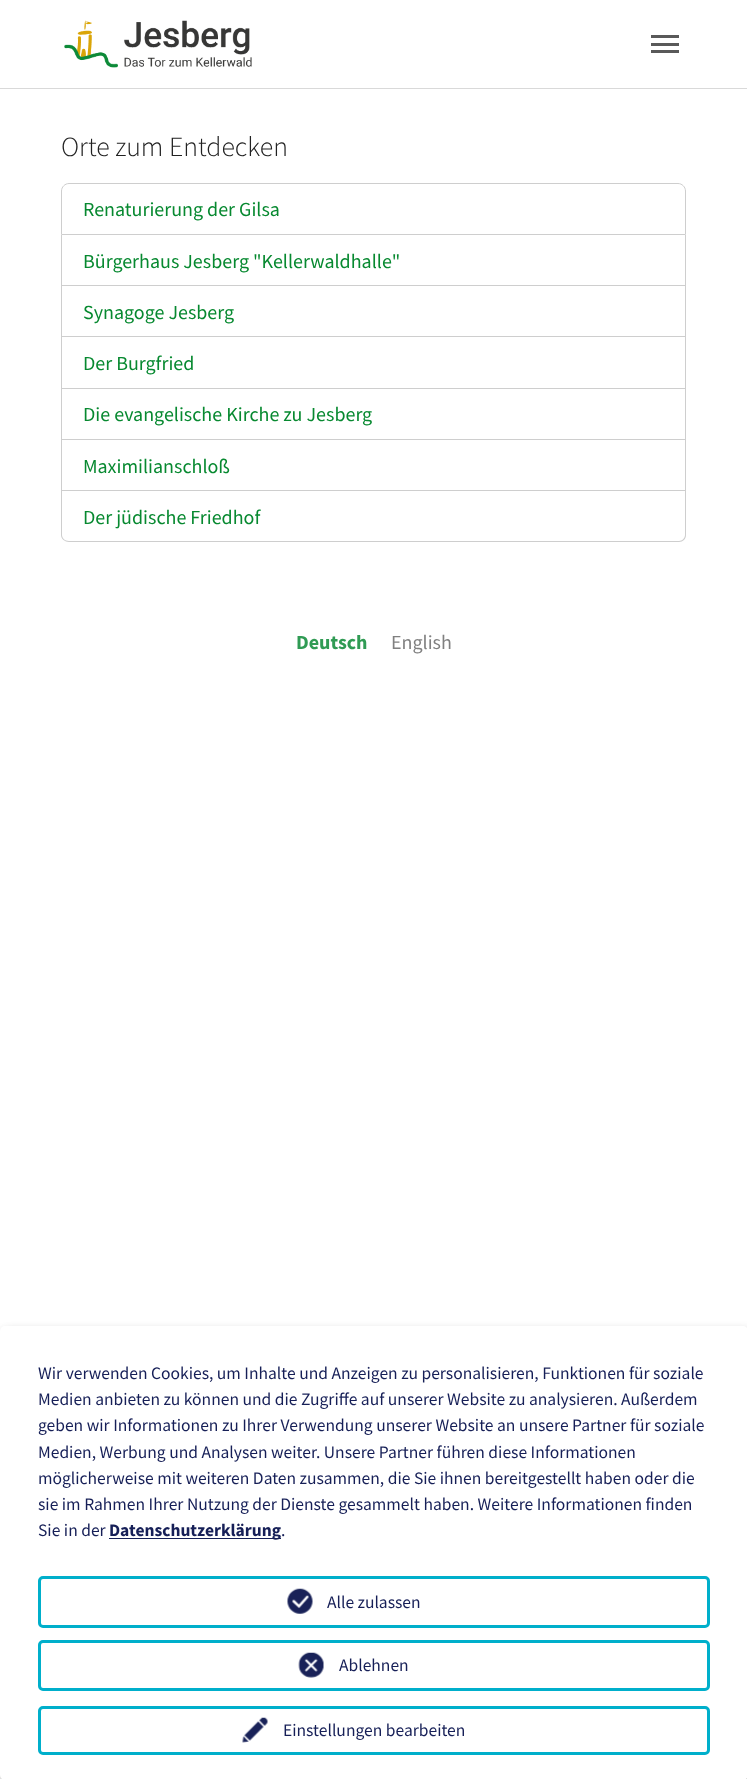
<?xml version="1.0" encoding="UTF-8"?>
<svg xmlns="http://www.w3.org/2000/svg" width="747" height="1779">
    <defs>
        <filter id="blur1" x="-50%" y="-200%" width="200%" height="500%"><feGaussianBlur stdDeviation="6"/></filter>
        <filter id="blur2" x="-50%" y="-200%" width="200%" height="500%"><feGaussianBlur stdDeviation="4"/></filter>
    </defs>
    <rect width="100%" height="100%" fill="#FFFFFF"/>
    <path d="M 0 88 V 89 H 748 V 1 V 88 Z" fill="#D9D9D9"/>
    <image x="64" y="20" width="188" height="48" href="img_01.png"/>
    <rect x="651" y="43" width="28" height="3" fill="#595959"/>
    <rect x="651" y="35" width="28" height="3" fill="#595959"/>
    <rect x="651" y="50" width="28" height="3" fill="#595959"/>
    <text x="61" y="156" font-family="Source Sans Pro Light" font-size="27.75" font-weight="300" fill="#212121">Orte zum Entdecken</text>
    <path d="M 69 183.5 H 678 C 682 183.5 685.5 187 685.5 191 V 234.5 H 61.5 V 191 C 61.5 187 65 183.5 69 183.5 Z" fill="none" stroke="#CECECE"/>
    <text x="83" y="216" font-family="Source Sans Pro" font-size="20" fill="#078930">Renaturierung der Gilsa</text>
    <rect x="685" y="235" width="1" height="256" fill="#CECECE"/>
    <rect x="61" y="285" width="625" height="1" fill="#CECECE"/>
    <rect x="61" y="235" width="1" height="51" fill="#CECECE"/>
    <text x="83" y="268" font-family="Source Sans Pro" font-size="20" fill="#078930">Bürgerhaus Jesberg "Kellerwaldhalle"</text>
    <rect x="61" y="336" width="625" height="1" fill="#CECECE"/>
    <rect x="61" y="286" width="1" height="52" fill="#CECECE"/>
    <text x="83" y="319" font-family="Source Sans Pro" font-size="20" fill="#078930">Synagoge Jesberg</text>
    <rect x="61" y="388" width="625" height="1" fill="#CECECE"/>
    <rect x="61" y="338" width="1" height="51" fill="#CECECE"/>
    <text x="83" y="370" font-family="Source Sans Pro" font-size="20" fill="#078930">Der Burgfried</text>
    <rect x="61" y="439" width="625" height="1" fill="#CECECE"/>
    <rect x="61" y="389" width="1" height="51" fill="#CECECE"/>
    <text x="83" y="421" font-family="Source Sans Pro" font-size="20" fill="#078930">Die evangelische Kirche zu Jesberg</text>
    <rect x="61" y="490" width="625" height="1" fill="#CECECE"/>
    <rect x="61" y="440" width="1" height="51" fill="#CECECE"/>
    <text x="83" y="473" font-family="Source Sans Pro" font-size="20" fill="#078930">Maximilianschloß</text>
    <path d="M 61 491 H 686 V 535 C 686 539 683 542 679 542 H 69 C 65 542 61 539 61 535 Z M 62 491 H 685 V 535 C 685 538 682 541 679 541 H 69 C 65 541 62 538 62 535 Z" fill="#CECECE" fill-rule="evenodd"/>
    <text x="83" y="524" font-family="Source Sans Pro" font-size="20" fill="#078930">Der jüdische Friedhof</text>
    <text x="296" y="649" font-family="Source Sans Pro" font-size="20" font-weight="700" fill="#309B54">Deutsch</text>
    <text x="391" y="649" font-family="Source Sans Pro" font-size="20" fill="#808080">English</text>
    <rect x="6" y="1333" width="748" height="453" rx="5" fill="#000000" fill-opacity="0.19" filter="url(#blur1)"/>
    <rect x="0" y="1331" width="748" height="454" rx="5" fill="#000000" fill-opacity="0.2" filter="url(#blur2)"/>
    <rect x="0" y="1326" width="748" height="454" rx="5" fill="#FFFFFF"/>
    <text font-family="Source Sans Pro" font-size="17.5" fill="#161F57">
        <tspan x="38" y="1379">Wir verwenden Cookies, um Inhalte und Anzeigen zu personalisieren, Funktionen für soziale</tspan>
        <tspan x="38" y="1405">Medien anbieten zu können und die Zugriffe auf unserer Website zu analysieren. Außerdem</tspan>
        <tspan x="38" y="1431">geben wir Informationen zu Ihrer Verwendung unserer Website an unsere Partner für soziale</tspan>
        <tspan x="38" y="1458">Medien, Werbung und Analysen weiter. Unsere Partner führen diese Informationen</tspan>
        <tspan x="38" y="1484">möglicherweise mit weiteren Daten zusammen, die Sie ihnen bereitgestellt haben oder die</tspan>
        <tspan x="38" y="1510">sie im Rahmen Ihrer Nutzung der Dienste gesammelt haben. Weitere Informationen finden</tspan>
        <tspan x="38" y="1536">Sie in der</tspan>
    </text>
    <rect x="109" y="1538" width="172" height="1" fill="#161F57"/>
    <text x="109" y="1536" font-family="Source Sans Pro" font-size="17.5" font-weight="700" fill="#161F57">Datenschutzerklärung</text>
    <text x="281" y="1536" font-family="Source Sans Pro" font-size="17.5" fill="#161F57">.</text>
    <rect x="39.5" y="1577.5" width="669" height="49" rx="3.5" fill="none" stroke="#00AFCB" stroke-width="3"/>
    <image x="287" y="1588" width="26" height="26" href="img_02.png"/>
    <text x="327" y="1608" font-family="Source Sans Pro" font-size="17.5" fill="#161F57">Alle zulassen</text>
    <rect x="39.5" y="1641.5" width="669" height="48" rx="3.5" fill="none" stroke="#00AFCB" stroke-width="3"/>
    <image x="298" y="1652" width="26" height="26" href="img_03.png"/>
    <text x="339" y="1671" font-family="Source Sans Pro" font-size="17.5" fill="#161F57">Ablehnen</text>
    <rect x="39.5" y="1707.5" width="669" height="46" rx="3.5" fill="none" stroke="#00AFCB" stroke-width="3"/>
    <image x="242" y="1717" width="26" height="26" href="img_04.png"/>
    <text x="283" y="1736" font-family="Source Sans Pro" font-size="17.5" fill="#161F57">Einstellungen bearbeiten</text>
</svg>
